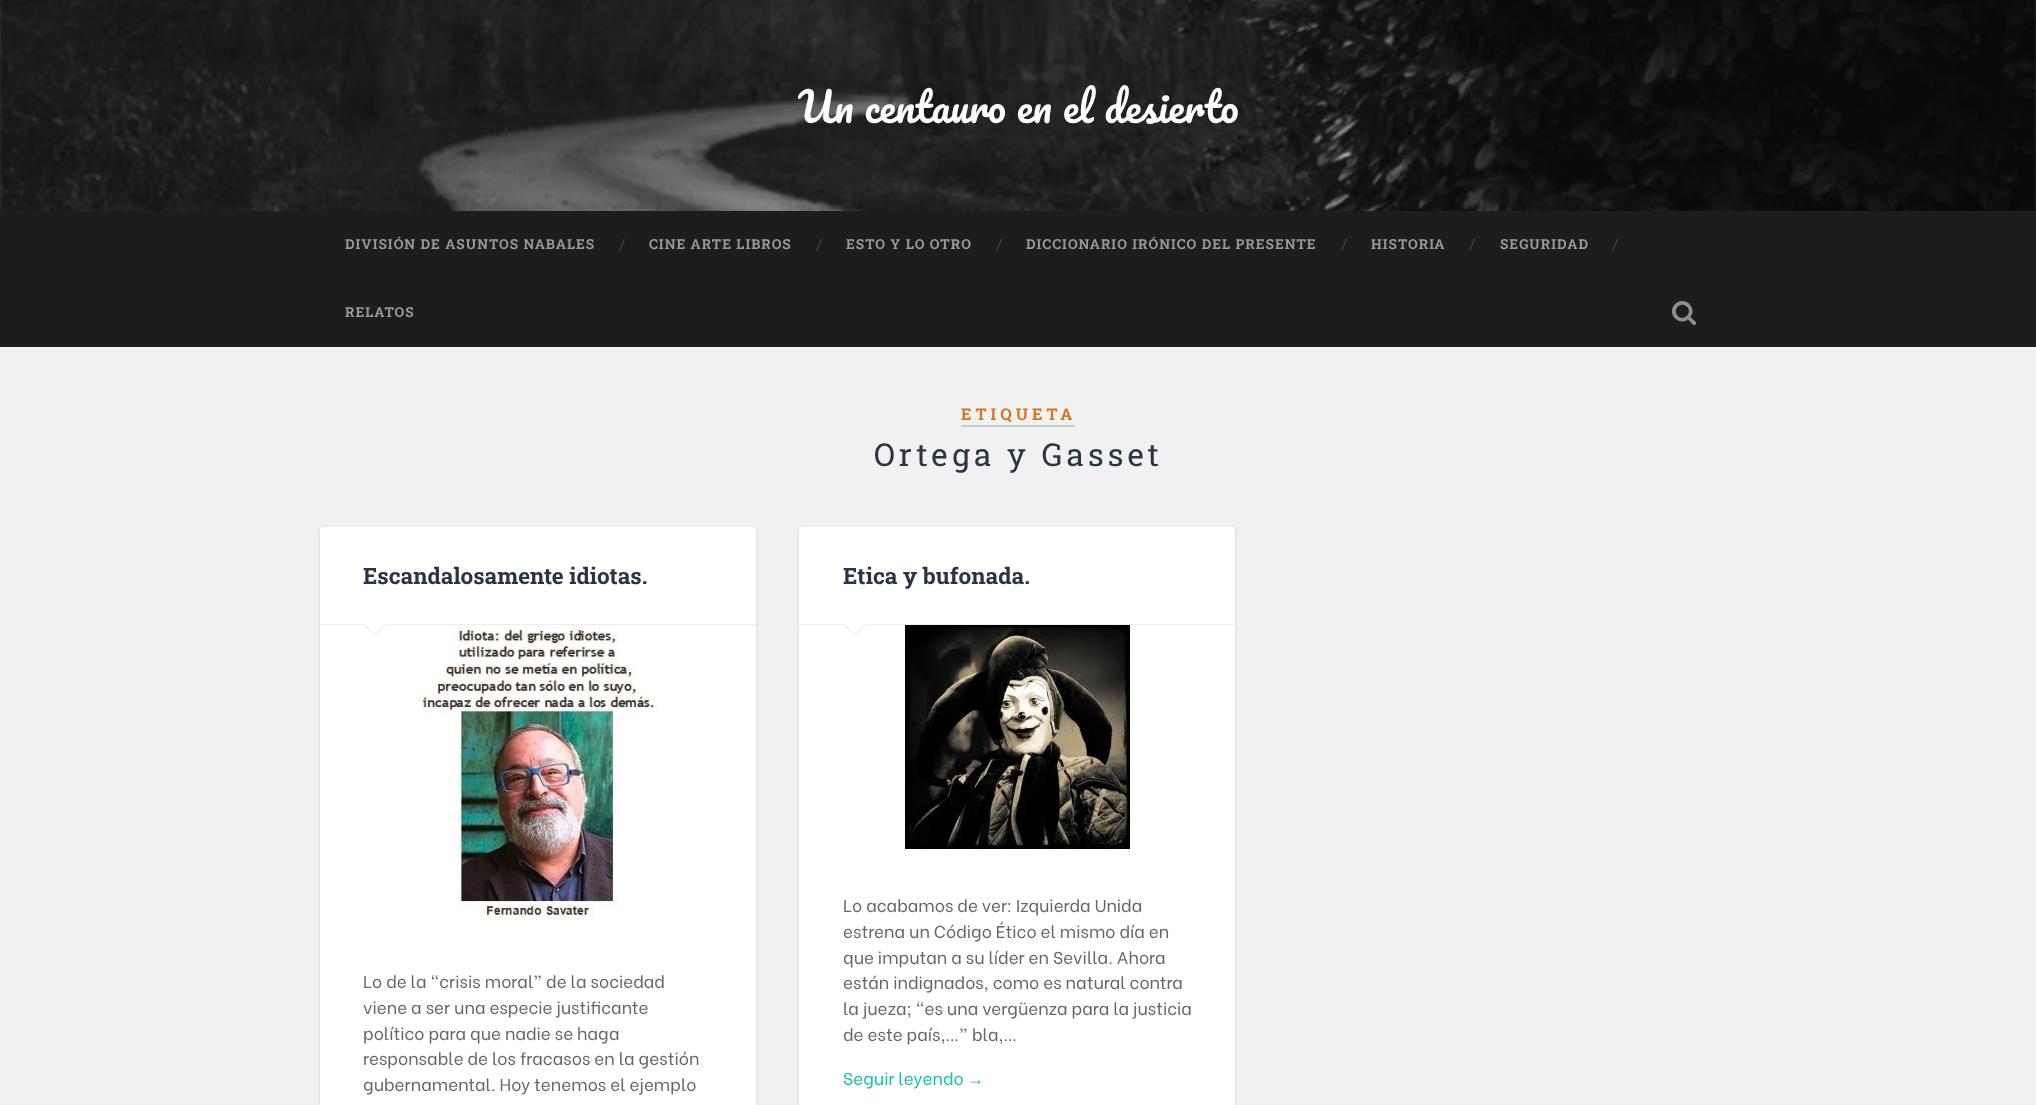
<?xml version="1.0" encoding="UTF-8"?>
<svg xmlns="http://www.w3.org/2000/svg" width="2036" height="1105">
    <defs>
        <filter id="blur1" x="-50%" y="-200%" width="200%" height="500%"><feGaussianBlur stdDeviation="2"/></filter>
    </defs>
    <rect width="100%" height="100%" fill="#F1F1F1"/>
    <image x="0" y="0" width="2036" height="211" href="img_01.png"/>
    <text x="798" y="123" font-family="Pacifico" font-size="40.5" fill="#FFFFFF">Un centauro en el desierto</text>
    <rect x="0" y="211" width="2036" height="136" fill="#1D1D1D"/>
    <text x="345" y="249" font-family="Roboto Slab" font-size="13.75" font-weight="700" letter-spacing="1" fill="#999999">DIVISIÓN DE ASUNTOS NABALES</text>
    <text x="619" y="250" font-family="Roboto Slab" font-size="16" fill="#444444">/</text>
    <text x="649" y="249" font-family="Roboto Slab" font-size="13.75" font-weight="700" letter-spacing="1" fill="#999999">CINE ARTE LIBROS</text>
    <text x="816" y="250" font-family="Roboto Slab" font-size="16" fill="#444444">/</text>
    <text x="846" y="249" font-family="Roboto Slab" font-size="13.75" font-weight="700" letter-spacing="1" fill="#999999">ESTO Y LO OTRO</text>
    <text x="996" y="250" font-family="Roboto Slab" font-size="16" fill="#444444">/</text>
    <text x="1026" y="249" font-family="Roboto Slab" font-size="13.75" font-weight="700" letter-spacing="1" fill="#999999">DICCIONARIO IRÓNICO DEL PRESENTE</text>
    <text x="1341" y="250" font-family="Roboto Slab" font-size="16" fill="#444444">/</text>
    <text x="1371" y="249" font-family="Roboto Slab" font-size="13.75" font-weight="700" letter-spacing="1" fill="#999999">HISTORIA</text>
    <text x="1469" y="250" font-family="Roboto Slab" font-size="16" fill="#444444">/</text>
    <text x="1500" y="249" font-family="Roboto Slab" font-size="13.75" font-weight="700" letter-spacing="1" fill="#999999">SEGURIDAD</text>
    <text x="1612" y="250" font-family="Roboto Slab" font-size="16" fill="#444444">/</text>
    <text x="345" y="317" font-family="Roboto Slab" font-size="13.75" font-weight="700" letter-spacing="1" fill="#999999">RELATOS</text>
    <image x="1672" y="301" width="24" height="24" href="img_02.png"/>
    <rect x="961" y="425" width="114" height="2" fill="#CCCCCC"/>
    <text x="961" y="420" font-family="Roboto Slab" font-size="16.25" font-weight="700" letter-spacing="4" fill="#D27620">ETIQUETA</text>
    <text x="874" y="466" font-family="Roboto Slab" font-size="31.5" letter-spacing="4" fill="#2B3542">Ortega y Gasset</text>
    <rect x="320" y="528" width="436" height="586" rx="3" fill="#000000" fill-opacity="0.1" filter="url(#blur1)"/>
    <rect x="320" y="527" width="436" height="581" rx="3" fill="#FFFFFF"/>
    <rect x="320" y="624" width="436" height="1" fill="#EEEEEE"/>
    <text x="363" y="584" font-family="Roboto Slab" font-size="22.5" font-weight="700" fill="#2B3542">Escandalosamente idiotas.</text>
    <path d="M 363 624 H 387 L 375 636 Z" fill="#EEEEEE"/>
    <path d="M 364 623 H 386 L 375 634 Z" fill="#FFFFFF"/>
    <image x="410" y="625" width="248" height="296" href="img_03.png"/>
    <text font-family="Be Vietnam" font-size="17.1" fill="#666666">
        <tspan x="363" y="988">Lo de la “crisis moral” de la sociedad</tspan>
        <tspan x="363" y="1014">viene a ser una especie justificante</tspan>
        <tspan x="363" y="1040">político para que nadie se haga</tspan>
        <tspan x="363" y="1065">responsable de los fracasos en la gestión</tspan>
        <tspan x="363" y="1091">gubernamental. Hoy tenemos el ejemplo</tspan>
    </text>
    <rect x="799" y="528" width="436" height="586" rx="3" fill="#000000" fill-opacity="0.1" filter="url(#blur1)"/>
    <rect x="799" y="527" width="436" height="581" rx="3" fill="#FFFFFF"/>
    <rect x="799" y="624" width="436" height="1" fill="#EEEEEE"/>
    <text x="843" y="584" font-family="Roboto Slab" font-size="22.5" font-weight="700" fill="#2B3542">Etica y bufonada.</text>
    <path d="M 843 624 H 867 L 855 636 Z" fill="#EEEEEE"/>
    <path d="M 844 623 H 866 L 855 634 Z" fill="#FFFFFF"/>
    <image x="905" y="625" width="225" height="224" href="img_04.png"/>
    <text font-family="Be Vietnam" font-size="17.1" fill="#666666">
        <tspan x="843" y="912">Lo acabamos de ver: Izquierda Unida</tspan>
        <tspan x="843" y="938">estrena un Código Ético el mismo día en</tspan>
        <tspan x="843" y="964">que imputan a su líder en Sevilla. Ahora</tspan>
        <tspan x="843" y="989">están indignados, como es natural contra</tspan>
        <tspan x="843" y="1015">la jueza; “es una vergüenza para la justicia</tspan>
        <tspan x="843" y="1041">de este país,…” bla,…</tspan>
    </text>
    <text x="843" y="1085" font-family="Be Vietnam" font-size="17.1" fill="#13C4A5">Seguir leyendo</text>
    <text x="967" y="1085" font-family="Liberation Sans" font-size="17.1" fill="#13C4A5">→</text>
</svg>
